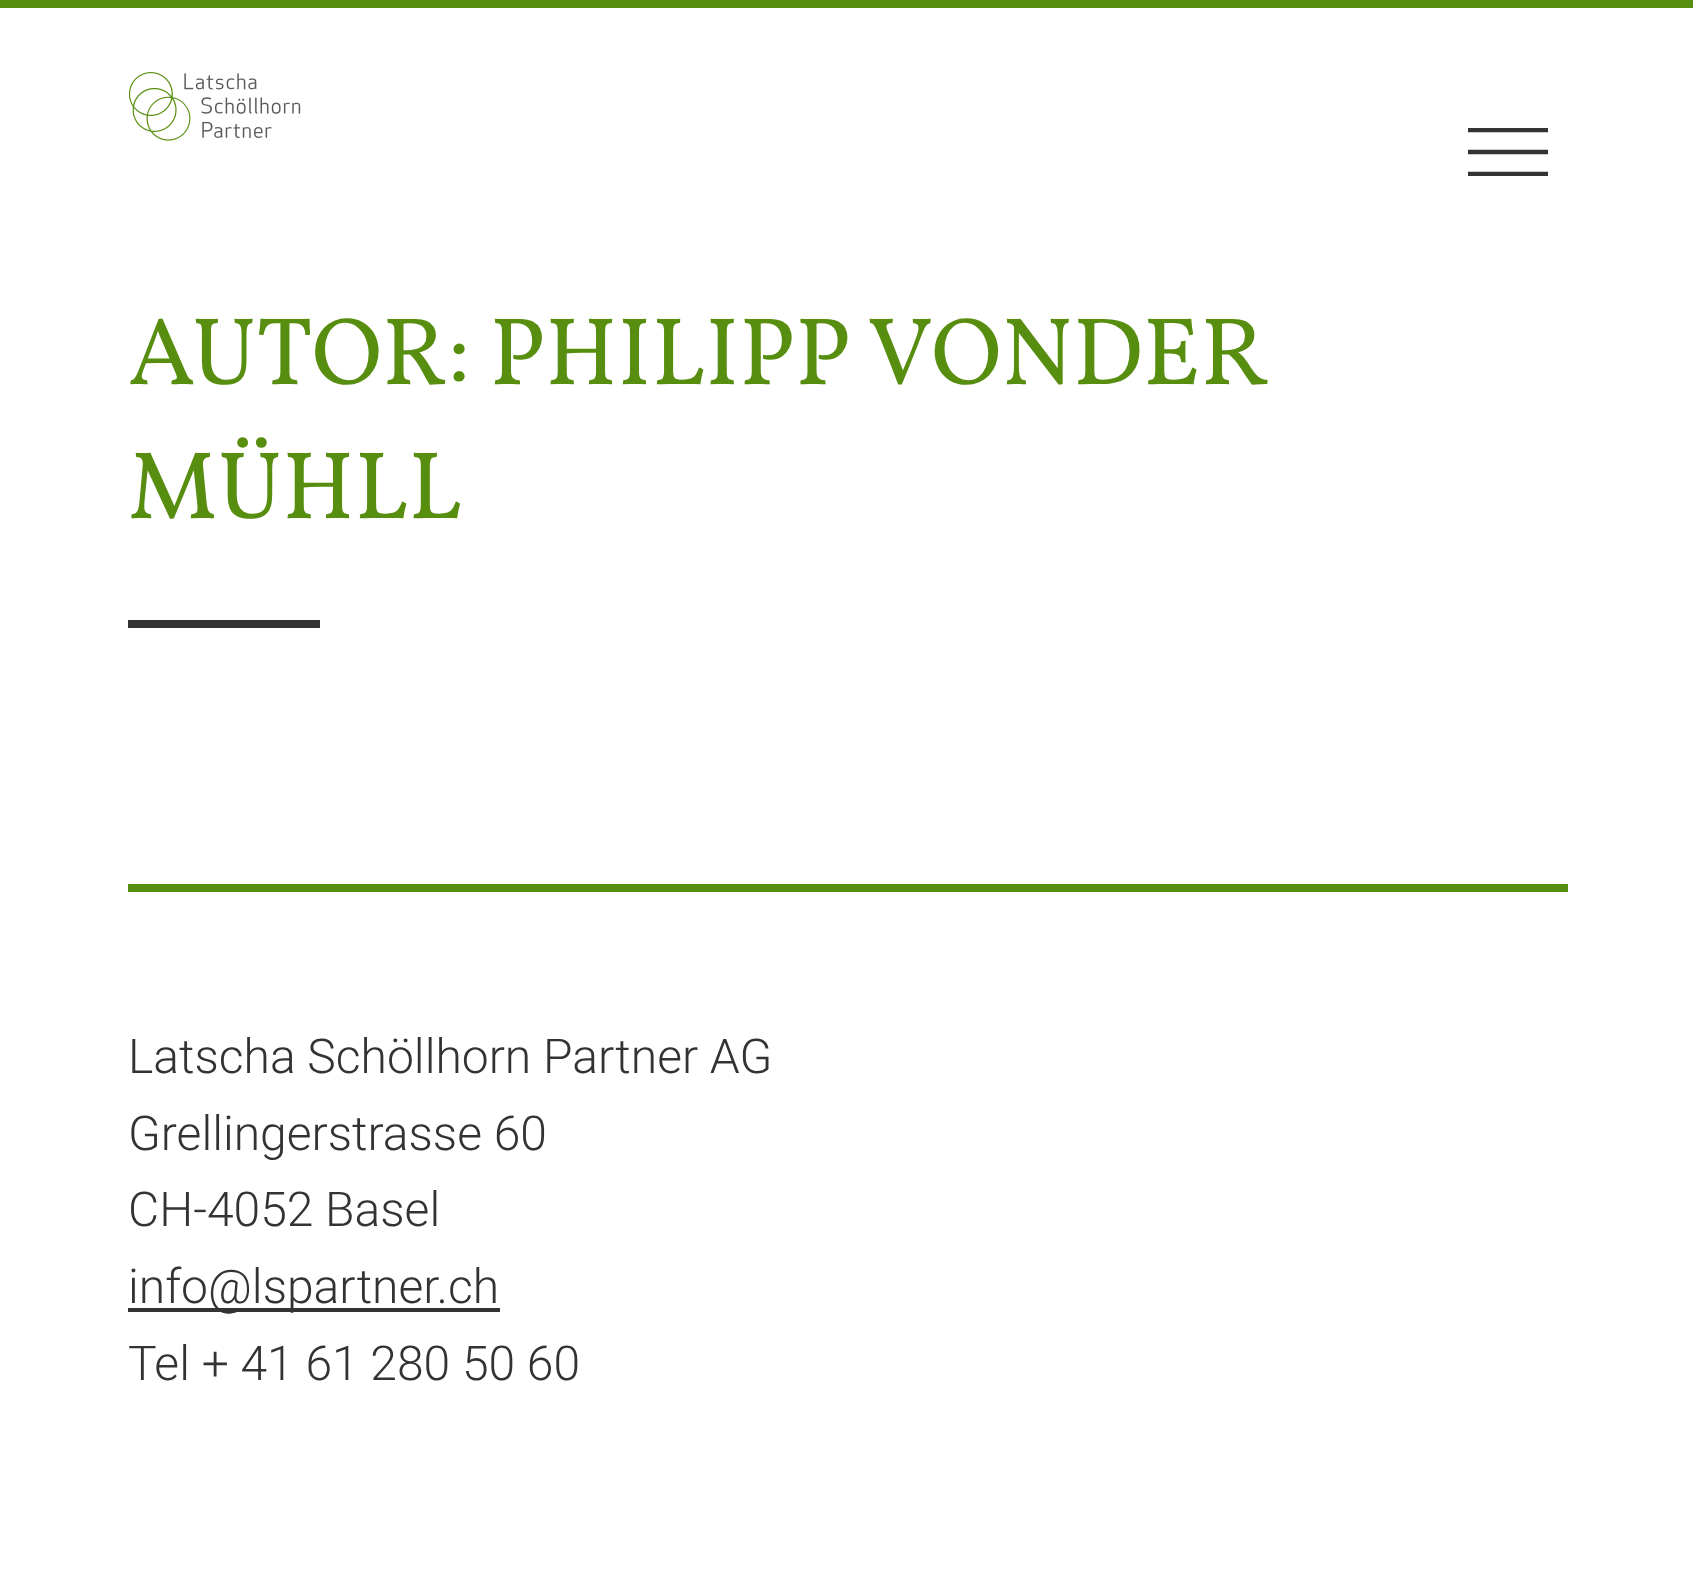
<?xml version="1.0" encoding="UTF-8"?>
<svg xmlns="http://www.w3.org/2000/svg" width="1693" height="1582">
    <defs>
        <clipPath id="clip1"><rect x="1464" y="128" width="88" height="48"/></clipPath>
    </defs>
    <rect width="100%" height="100%" fill="#FFFFFF"/>
    <rect x="0" y="0" width="1693" height="8" fill="#588E0F"/>
    <image x="129" y="72" width="172" height="69" href="img_01.png"/>
    <g clip-path="url(#clip1)">
        <path d="M 1468 152 H 1548 M 1468 174 H 1548 M 1468 130 H 1548" fill="none" stroke="#333333" stroke-width="4.4"/>
    </g>
    <text font-family="Vollkorn" font-size="96" fill="#588E0F">
        <tspan x="128" y="384">AUTOR: PHILIPP VONDER</tspan>
        <tspan x="128" y="518">MÜHLL</tspan>
    </text>
    <rect x="128" y="620" width="192" height="8" fill="#333333"/>
    <rect x="128" y="884" width="1440" height="8" fill="#588E0F"/>
    <text font-family="Roboto" font-size="48" font-weight="300" fill="#333333">
        <tspan x="128" y="1073">Latscha Schöllhorn Partner AG</tspan>
        <tspan x="128" y="1150">Grellingerstrasse 60</tspan>
        <tspan x="128" y="1226">CH-4052 Basel</tspan>
    </text>
    <rect x="128" y="1308" width="372" height="4" fill="#333333"/>
    <text font-family="Roboto" font-size="48" font-weight="300" fill="#333333">
        <tspan x="128" y="1303">info@lspartner.ch</tspan>
        <tspan x="128" y="1380">Tel + 41 61 280 50 60</tspan>
    </text>
</svg>
